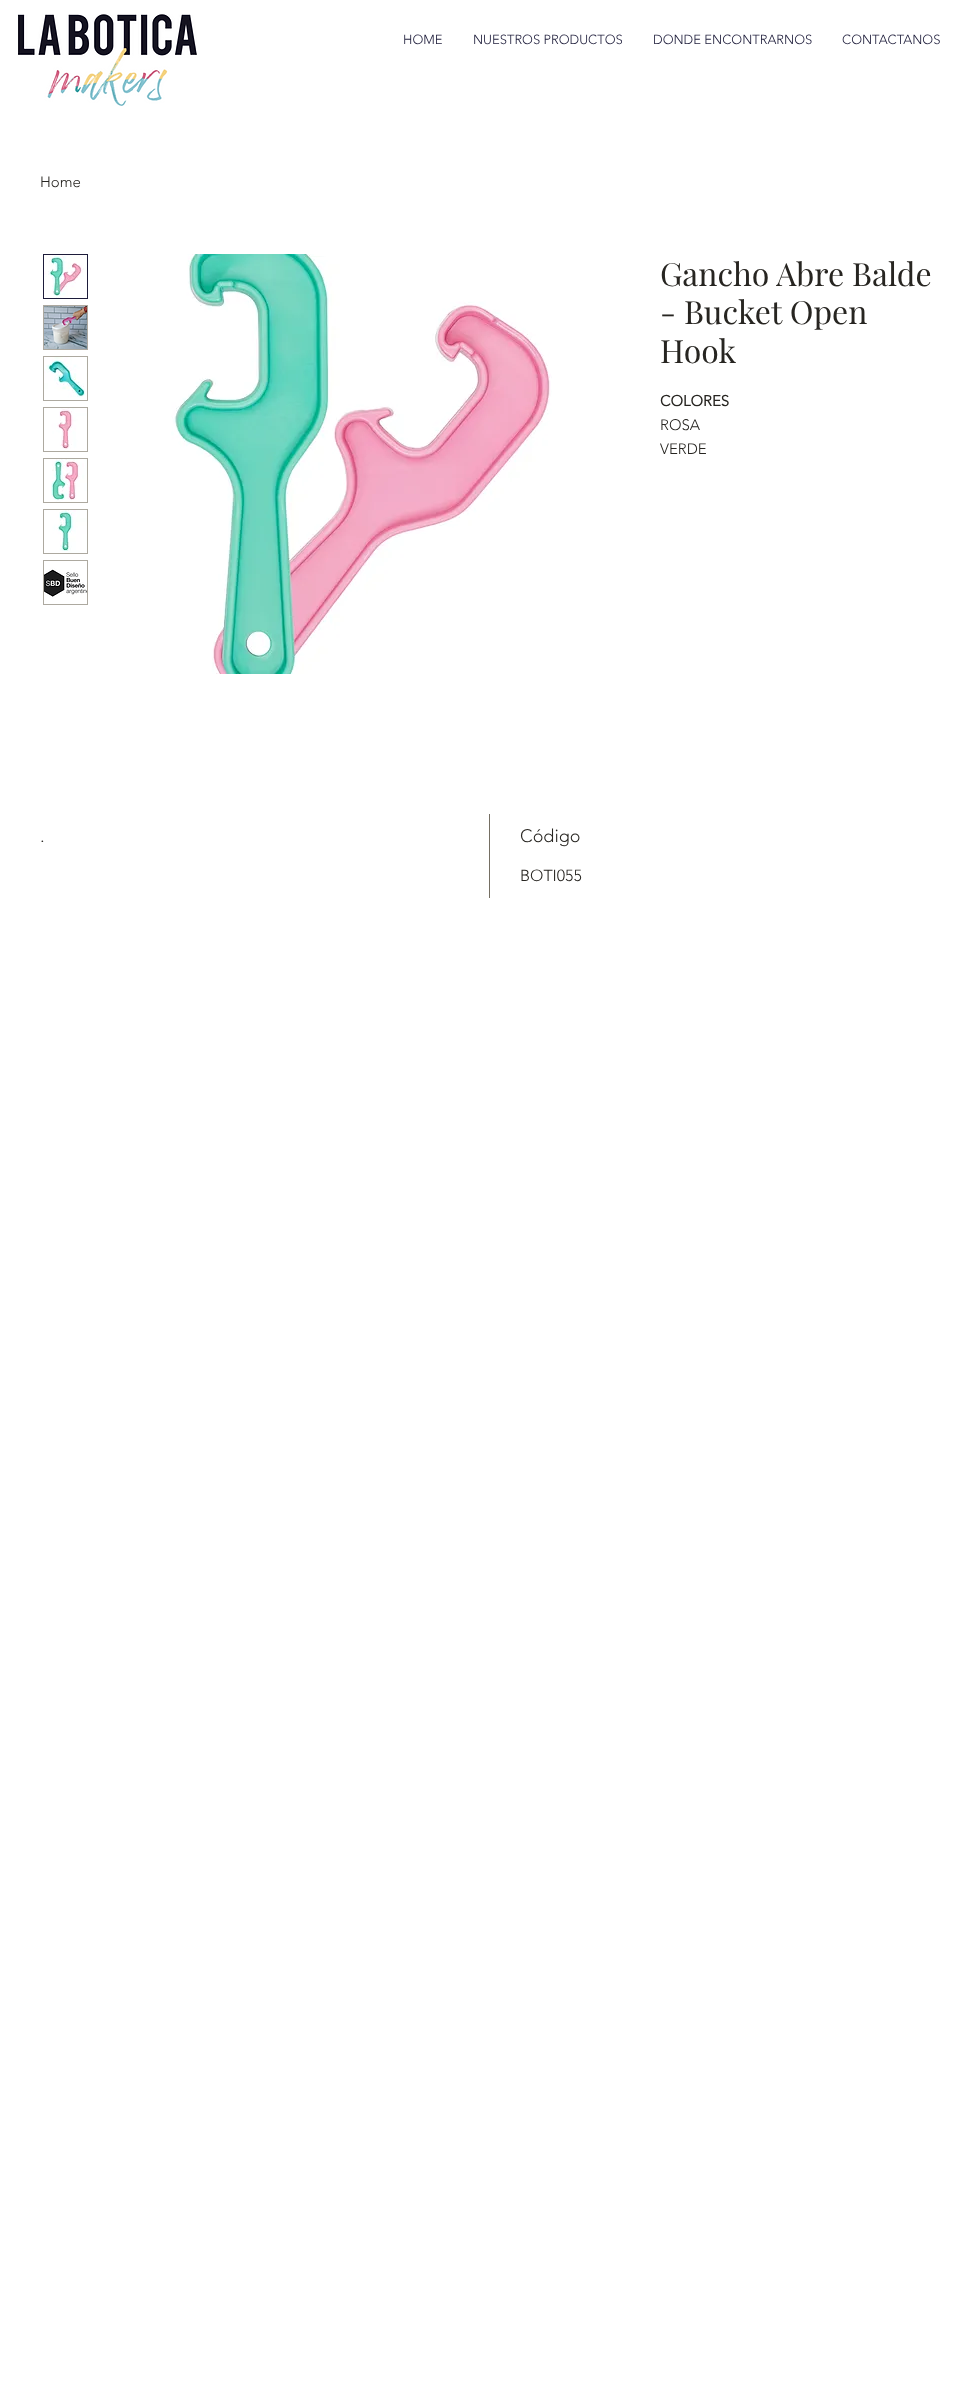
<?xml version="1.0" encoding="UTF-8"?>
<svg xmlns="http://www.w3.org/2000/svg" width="971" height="2388">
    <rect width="100%" height="100%" fill="#FFFFFF"/>
    <image x="17" y="14" width="180" height="92" href="img_01.png"/>
    <text x="403" y="44" font-family="'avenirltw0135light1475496'" font-size="13" font-weight="300" fill="#1D1C3A">HOME</text>
    <text x="473" y="44" font-family="'avenirltw0135light1475496'" font-size="13" font-weight="300" fill="#1D1C3A">NUESTROS PRODUCTOS</text>
    <text x="653" y="44" font-family="'avenirltw0135light1475496'" font-size="13" font-weight="300" fill="#1D1C3A">DONDE ENCONTRARNOS</text>
    <text x="842" y="44" font-family="'avenirltw0135light1475496'" font-size="13" font-weight="300" fill="#1D1C3A">CONTACTANOS</text>
    <text x="40" y="187" font-family="'avenirltw0135light1475496'" font-size="15" font-weight="300" fill="#272521">Home</text>
    <rect x="43.5" y="254.5" width="44" height="44" fill="none" stroke="#1D1C3A"/>
    <image x="44" y="255" width="43" height="43" href="img_02.png"/>
    <rect x="43" y="305" width="45" height="45" fill="#ADA9A0"/>
    <image x="44" y="306" width="43" height="43" href="img_03.png"/>
    <rect x="43" y="356" width="45" height="45" fill="#ADA9A0"/>
    <image x="44" y="357" width="43" height="43" href="img_04.png"/>
    <rect x="43" y="407" width="45" height="45" fill="#ADA9A0"/>
    <image x="44" y="408" width="43" height="43" href="img_05.png"/>
    <rect x="43" y="458" width="45" height="45" fill="#ADA9A0"/>
    <image x="44" y="459" width="43" height="43" href="img_06.png"/>
    <rect x="43" y="509" width="45" height="45" fill="#ADA9A0"/>
    <image x="44" y="510" width="43" height="43" href="img_07.png"/>
    <rect x="43" y="560" width="45" height="45" fill="#ADA9A0"/>
    <image x="44" y="561" width="43" height="43" href="img_08.png"/>
    <image x="171" y="254" width="381" height="420" href="img_09.png"/>
    <text font-family="Playfair Display" font-size="32" fill="#272521">
        <tspan x="660" y="286">Gancho Abre Balde</tspan>
        <tspan x="660" y="324">- Bucket Open</tspan>
        <tspan x="660" y="363">Hook</tspan>
    </text>
    <text x="660" y="406" font-family="'avenirltw0135light1475496'" font-size="15" font-weight="700" fill="#272521">COLORES</text>
    <text font-family="'avenirltw0135light1475496'" font-size="15" font-weight="300" fill="#272521">
        <tspan x="660" y="430">ROSA</tspan>
        <tspan x="660" y="454">VERDE</tspan>
    </text>
    <rect x="489" y="814" width="1" height="84" fill="#756F63"/>
    <text x="40" y="842" font-family="'avenirltw0135light1475496'" font-size="18" font-weight="300" fill="#272521">.</text>
    <text x="520" y="842" font-family="'avenirltw0135light1475496'" font-size="18" font-weight="300" fill="#272521">Código</text>
    <text x="520" y="881" font-family="'avenirltw0135light1475496'" font-size="16" font-weight="300" fill="#272521">BOTI055</text>
</svg>
